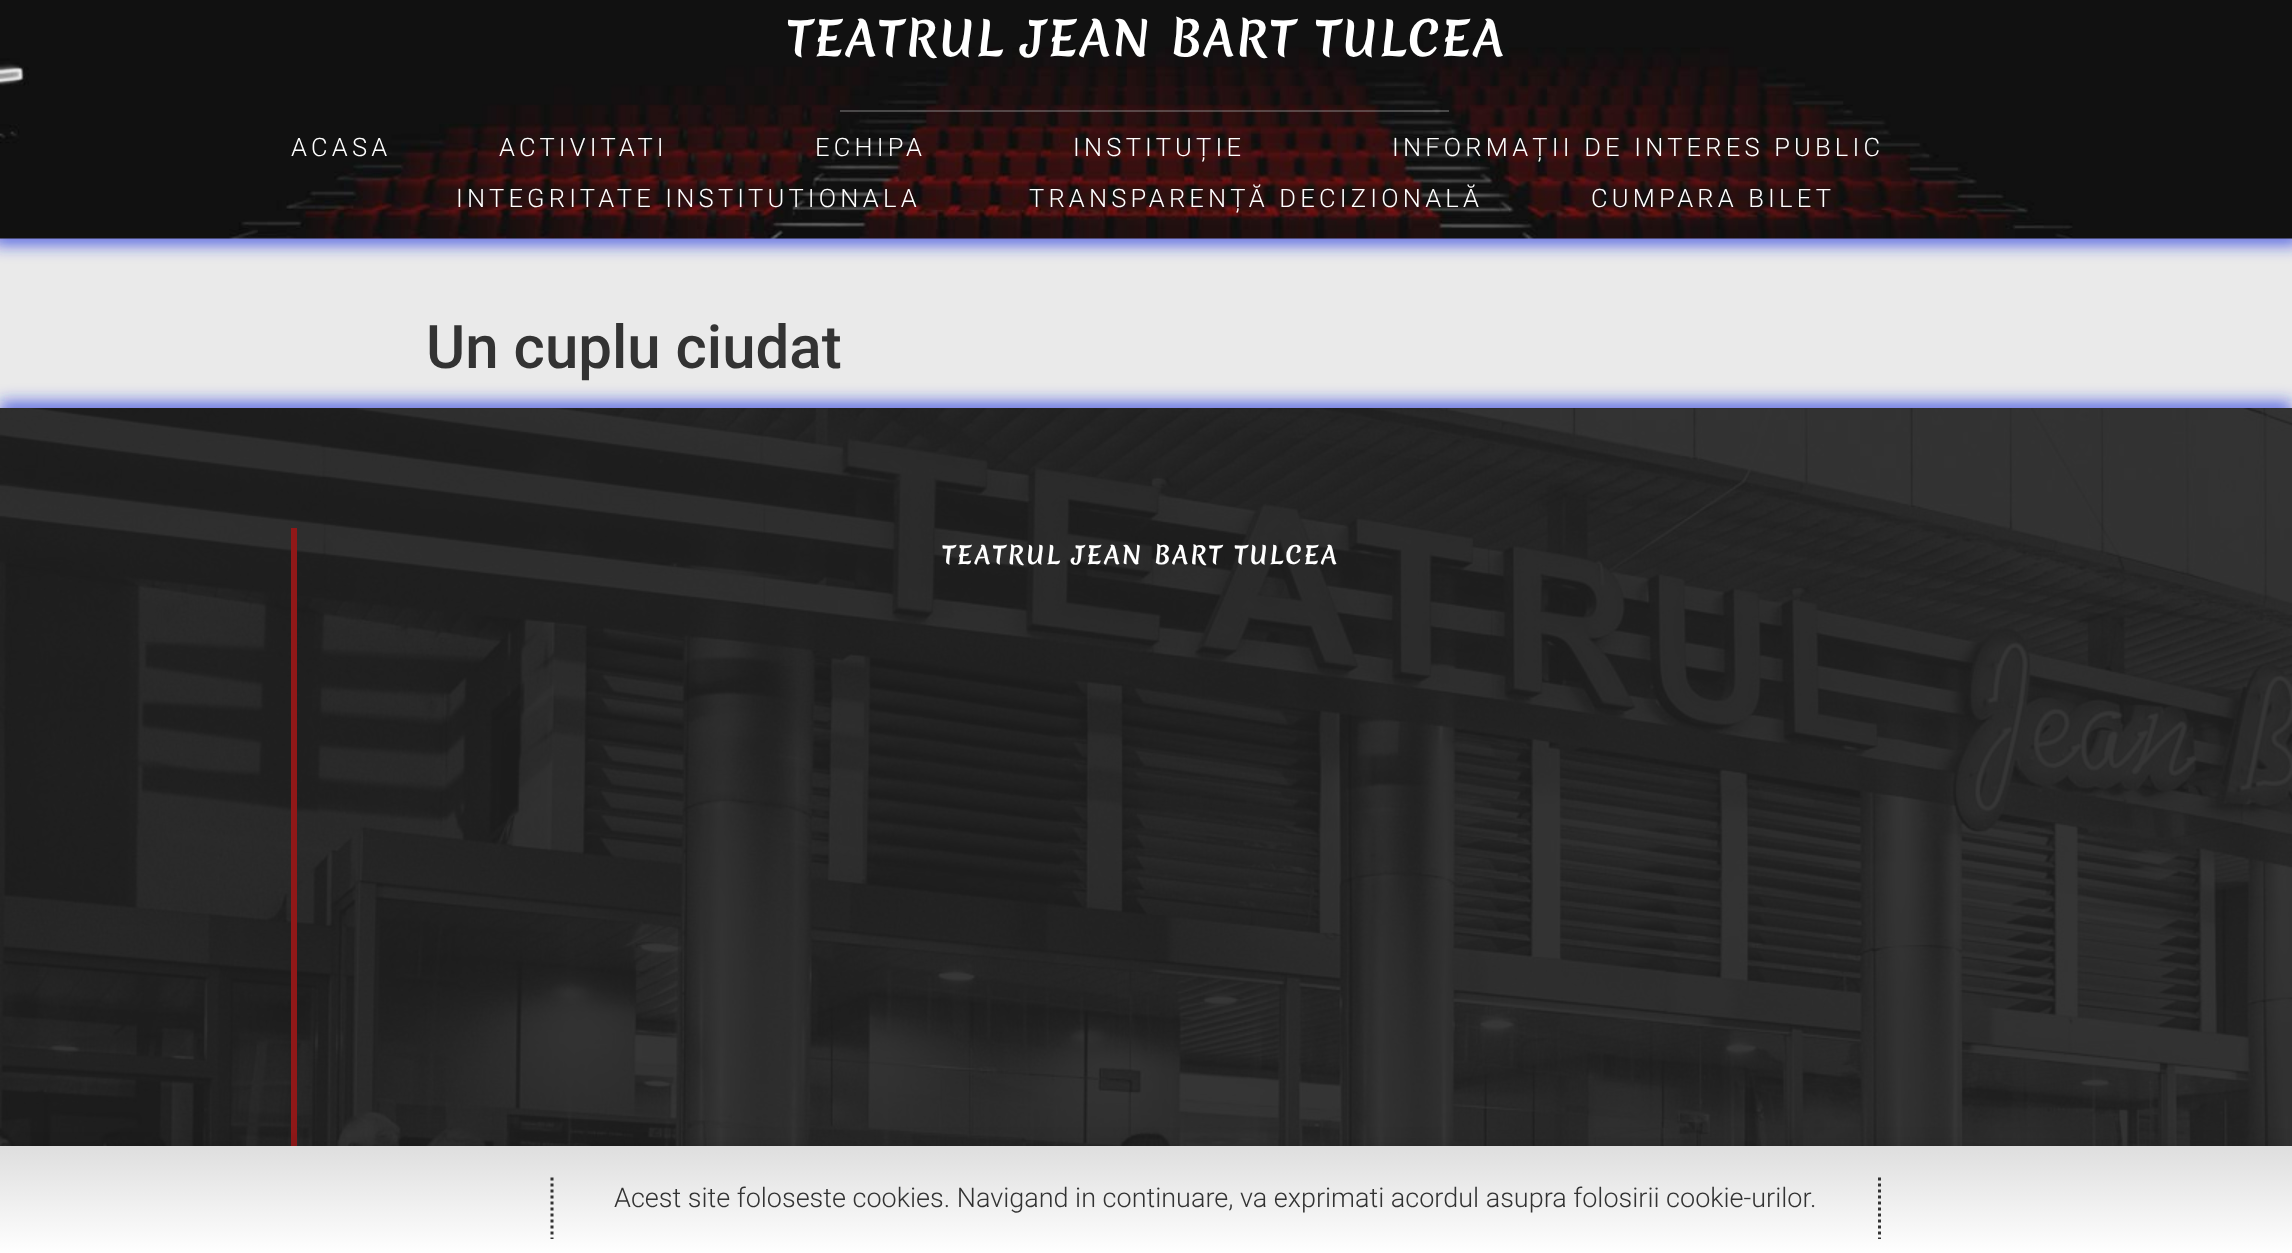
<?xml version="1.0" encoding="UTF-8"?>
<svg xmlns="http://www.w3.org/2000/svg" width="2292" height="1253">
    <defs>
        <filter id="blur1" x="-50%" y="-200%" width="200%" height="500%"><feGaussianBlur stdDeviation="7.5"/></filter>
        <filter id="blur2" x="-50%" y="-200%" width="200%" height="500%"><feGaussianBlur stdDeviation="17"/></filter>
        <linearGradient id="g1" gradientUnits="userSpaceOnUse" x1="1146" y1="1146" x2="1146" y2="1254"><stop offset="0" stop-color="#DEDEDE"/><stop offset="1" stop-color="#FFFFFF"/></linearGradient>
    </defs>
    <rect width="100%" height="100%" fill="#EAEAEA"/>
    <rect x="-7" y="-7" width="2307" height="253" fill="#1D30E0" fill-opacity="0.63" filter="url(#blur1)"/>
    <image x="0" y="0" width="2292" height="239" href="img_01.png"/>
    <text x="787" y="56" font-family="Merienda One" font-size="46.5" letter-spacing="2.25" fill="#FFFFFF">TEATRUL JEAN BART TULCEA</text>
    <rect x="840" y="110" width="609" height="2" fill="#9E9E9E" fill-opacity="0.4"/>
    <text x="291" y="156" font-family="Roboto" font-size="25.5" font-weight="300" letter-spacing="4.2" fill="#FFFFFF">ACASA</text>
    <text x="499" y="156" font-family="Roboto" font-size="25.5" font-weight="300" letter-spacing="4.2" fill="#FFFFFF">ACTIVITATI</text>
    <text x="815" y="156" font-family="Roboto" font-size="25.5" font-weight="300" letter-spacing="4.2" fill="#FFFFFF">ECHIPA</text>
    <text x="1073" y="156" font-family="Roboto" font-size="25.5" font-weight="300" letter-spacing="4.2" fill="#FFFFFF">INSTITUȚIE</text>
    <text x="1392" y="156" font-family="Roboto" font-size="25.5" font-weight="300" letter-spacing="4.2" fill="#FFFFFF">INFORMAȚII DE INTERES PUBLIC</text>
    <text x="456" y="207" font-family="Roboto" font-size="25.5" font-weight="300" letter-spacing="4.2" fill="#FFFFFF">INTEGRITATE INSTITUTIONALA</text>
    <text x="1029" y="207" font-family="Roboto" font-size="25.5" font-weight="300" letter-spacing="4.2" fill="#FFFFFF">TRANSPARENȚĂ DECIZIONALĂ</text>
    <text x="1591" y="207" font-family="Roboto" font-size="25.5" font-weight="300" letter-spacing="4.2" fill="#FFFFFF">CUMPARA BILET</text>
    <text x="426" y="368" font-family="Roboto" font-size="60" font-weight="500" fill="#333333">Un cuplu ciudat</text>
    <rect x="0" y="401" width="2292" height="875" fill="#1D30E0" fill-opacity="0.63" filter="url(#blur1)"/>
    <image x="0" y="408" width="2292" height="738" href="img_02.png"/>
    <rect x="291" y="528" width="6" height="618" fill="#901818"/>
    <text x="942" y="564" font-family="Merienda One" font-size="24" letter-spacing="2.25" fill="#FFFFFF">TEATRUL JEAN BART TULCEA</text>
    <rect x="-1" y="1154" width="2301" height="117" fill="#000000" fill-opacity="0.2" filter="url(#blur2)"/>
    <rect x="0" y="1146" width="2292" height="107" fill="url(#g1)"/>
    <path d="M 1879.5 1177.5 V 1239" fill="none" stroke="#333333" stroke-width="3" stroke-dasharray="3 3"/>
    <path d="M 552 1177.5 V 1239" fill="none" stroke="#333333" stroke-width="3" stroke-dasharray="3 3"/>
    <text x="614" y="1207" font-family="Roboto" font-size="27" font-weight="300" fill="#333333">Acest site foloseste cookies. Navigand in continuare, va exprimati acordul asupra folosirii cookie-urilor.</text>
</svg>
